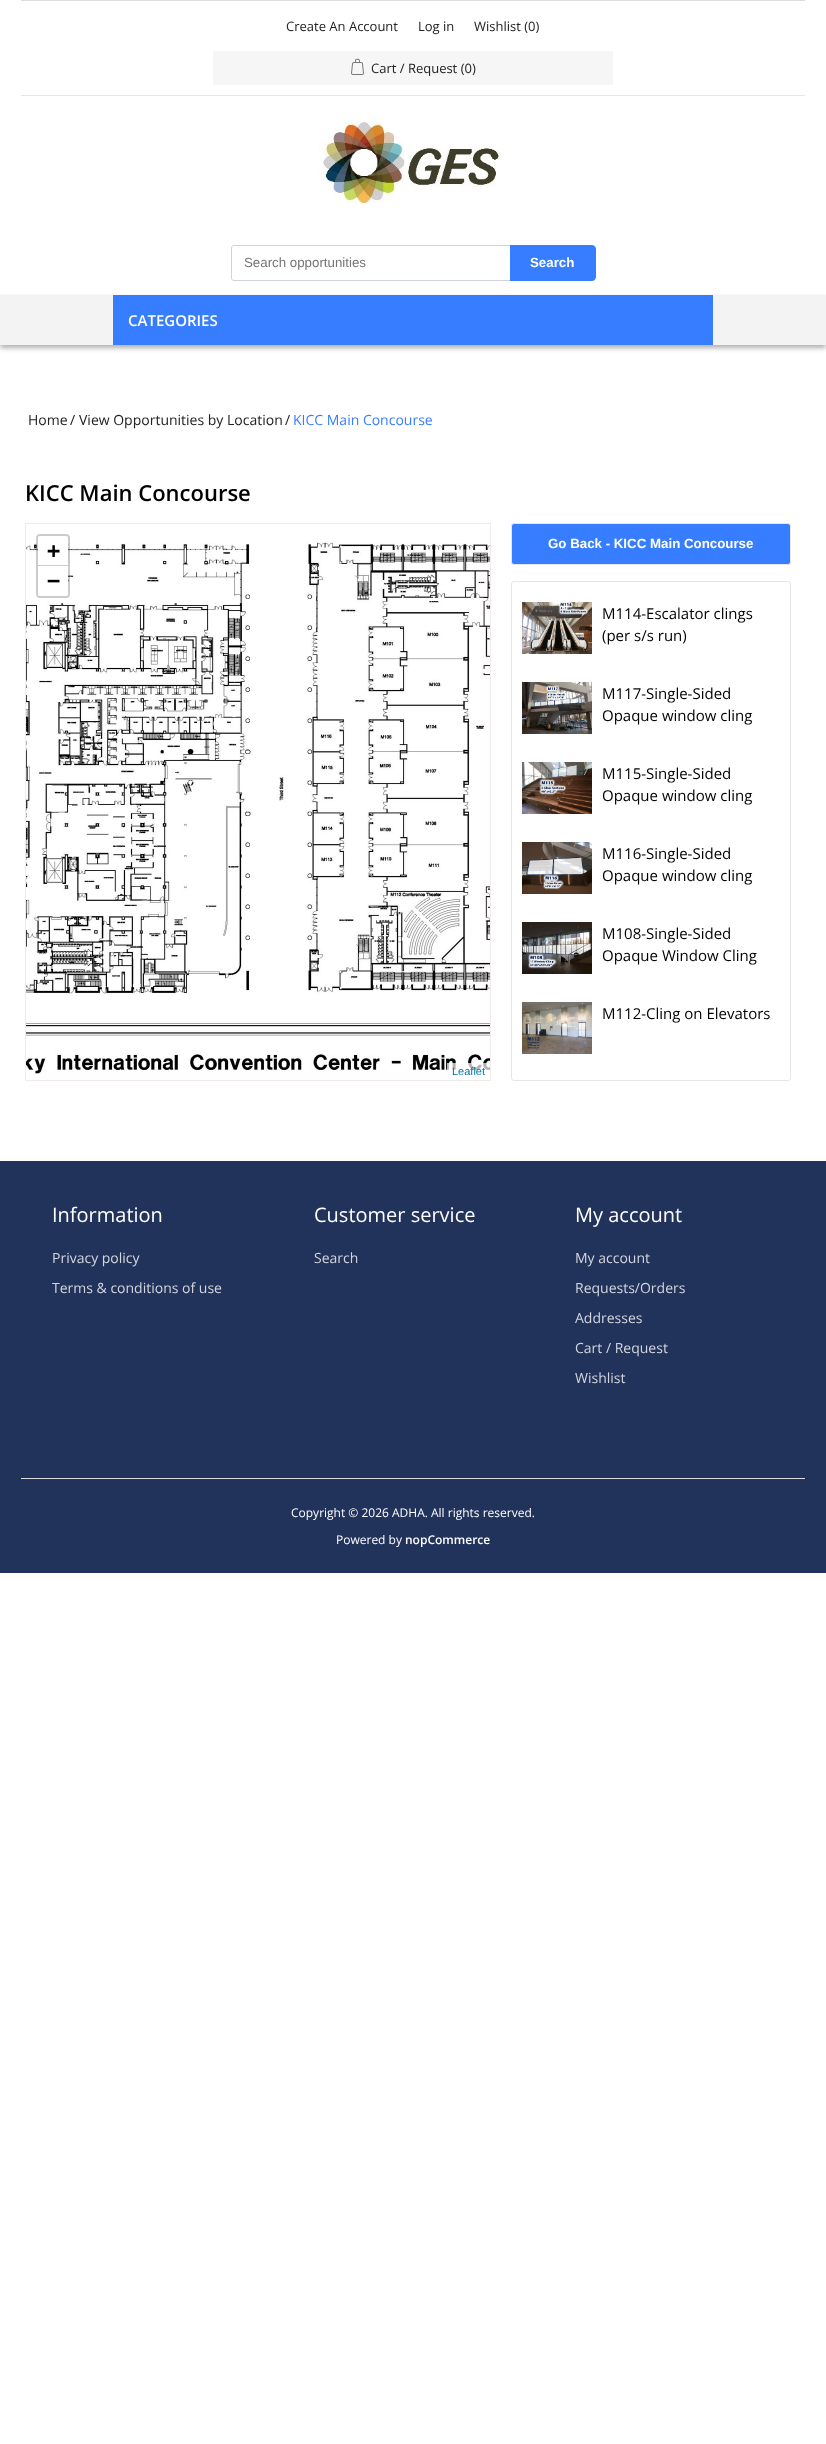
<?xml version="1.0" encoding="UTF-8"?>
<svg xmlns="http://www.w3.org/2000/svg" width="826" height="2444">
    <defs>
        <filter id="blur1" x="-50%" y="-200%" width="200%" height="500%"><feGaussianBlur stdDeviation="2.5"/></filter>
    </defs>
    <rect width="100%" height="100%" fill="#FFFFFF"/>
    <rect x="21" y="95" width="784" height="1" fill="#E6E6E6"/>
    <rect x="21" y="0" width="784" height="1" fill="#DDDDDD"/>
    <text x="286" y="31" font-family="Open Sans" font-size="13" fill="#222222">Create An Account</text>
    <text x="418" y="31" font-family="Open Sans" font-size="13" fill="#222222">Log in</text>
    <text x="474" y="31" font-family="Open Sans" font-size="13" fill="#222222">Wishlist (0)</text>
    <rect x="213" y="51" width="400" height="34" fill="#F6F6F6"/>
    <image x="351" y="58" width="13" height="17" href="img_01.png"/>
    <text x="371" y="73" font-family="Open Sans" font-size="13" fill="#222222">Cart / Request (0)</text>
    <image x="318" y="117" width="183" height="88" href="img_02.png"/>
    <path d="M 234 245.5 H 510.5 V 280.5 H 234 C 232.5 280.5 231.5 279.5 231.5 278 V 248 C 231.5 246.5 232.5 245.5 234 245.5 Z" fill="none" stroke="#CED4DA"/>
    <text x="244" y="267" font-family="Liberation Sans" font-size="13.3" fill="#757575">Search opportunities</text>
    <path d="M 510 245 H 592 C 594 245 596 247 596 249 V 277 C 596 279 594 281 592 281 H 510 Z" fill="#377DFF"/>
    <text x="530" y="267" font-family="Liberation Sans" font-size="13.3" font-weight="700" fill="#FFFFFF">Search</text>
    <rect x="0" y="298" width="826" height="50" fill="#000000" fill-opacity="0.31" filter="url(#blur1)"/>
    <rect x="0" y="295" width="826" height="50" fill="#F3F3F3"/>
    <rect x="113" y="295" width="600" height="50" fill="#377DFF"/>
    <text x="128" y="326" font-family="Open Sans" font-size="15" font-weight="600" fill="#FFFFFF">CATEGORIES</text>
    <text x="28" y="425" font-family="Open Sans" font-size="14" fill="#222222">Home</text>
    <text x="70" y="425" font-family="Open Sans" font-size="14" fill="#222222">/</text>
    <text x="79" y="425" font-family="Open Sans" font-size="14" fill="#222222">View Opportunities by Location</text>
    <text x="285" y="425" font-family="Open Sans" font-size="14" fill="#222222">/</text>
    <text x="293" y="425" font-family="Open Sans" font-size="14" fill="#377DFF">KICC Main Concourse</text>
    <text x="25" y="501" font-family="Open Sans" font-size="22" font-weight="600" fill="#000000">KICC Main Concourse</text>
    <rect x="511.5" y="523.5" width="279" height="41" rx="2.5" fill="#377DFF" stroke="#E6E6E6"/>
    <text x="548" y="548" font-family="Liberation Sans" font-size="13.3" font-weight="700" fill="#FFFFFF">Go Back - KICC Main Concourse</text>
    <rect x="25.5" y="523.5" width="465" height="557" fill="none" stroke="#F2EBEB"/>
    <image x="26" y="542" width="464" height="532" href="img_03.png"/>
    <rect x="37" y="535" width="32" height="62" rx="3" fill="none" stroke="#000000" stroke-opacity="0.2" stroke-width="2"/>
    <path d="M 40 536 H 66 C 67 536 68 537 68 538 V 566 H 38 V 538 C 38 537 39 536 40 536 Z" fill="#FFFFFF"/>
    <rect x="38" y="565" width="30" height="1" fill="#CCCCCC"/>
    <text x="47" y="558" font-family="DejaVu Sans Mono" font-size="22" font-weight="700" fill="#000000">+</text>
    <path d="M 38 566 H 68 V 594 C 68 595 67 596 66 596 H 40 C 39 596 38 595 38 594 Z" fill="#FFFFFF"/>
    <text x="47" y="588" font-family="DejaVu Sans Mono" font-size="22" font-weight="700" fill="#000000">−</text>
    <rect x="447" y="1063" width="43" height="9" fill="#FFFFFF" fill-opacity="0.7"/>
    <text x="452" y="1075" font-family="Liberation Sans" font-size="11" fill="#0078A8">Leaflet</text>
    <rect x="511.5" y="581.5" width="279" height="499" rx="2.5" fill="none" stroke="#E6E6E6"/>
    <image x="522" y="602" width="70" height="52" href="img_04.png"/>
    <text font-family="Open Sans" font-size="15" fill="#000000">
        <tspan x="602" y="619">M114-Escalator clings</tspan>
        <tspan x="602" y="641">(per s/s run)</tspan>
    </text>
    <image x="522" y="682" width="70" height="52" href="img_05.png"/>
    <text font-family="Open Sans" font-size="15" fill="#000000">
        <tspan x="602" y="699">M117-Single-Sided</tspan>
        <tspan x="602" y="721">Opaque window cling</tspan>
    </text>
    <image x="522" y="762" width="70" height="52" href="img_06.png"/>
    <text font-family="Open Sans" font-size="15" fill="#000000">
        <tspan x="602" y="779">M115-Single-Sided</tspan>
        <tspan x="602" y="801">Opaque window cling</tspan>
    </text>
    <image x="522" y="842" width="70" height="52" href="img_07.png"/>
    <text font-family="Open Sans" font-size="15" fill="#000000">
        <tspan x="602" y="859">M116-Single-Sided</tspan>
        <tspan x="602" y="881">Opaque window cling</tspan>
    </text>
    <image x="522" y="922" width="70" height="52" href="img_08.png"/>
    <text font-family="Open Sans" font-size="15" fill="#000000">
        <tspan x="602" y="939">M108-Single-Sided</tspan>
        <tspan x="602" y="961">Opaque Window Cling</tspan>
    </text>
    <image x="522" y="1002" width="70" height="52" href="img_09.png"/>
    <text x="602" y="1019" font-family="Open Sans" font-size="15" fill="#000000">M112-Cling on Elevators</text>
    <rect x="0" y="1161" width="826" height="412" fill="#21325B"/>
    <rect x="21" y="1478" width="784" height="1" fill="#DDDDDD"/>
    <text x="52" y="1222" font-family="Open Sans" font-size="20" fill="#FFFFFF">Information</text>
    <text x="52" y="1263" font-family="Open Sans" font-size="14" fill="#D3D6DE">Privacy policy</text>
    <text x="52" y="1293" font-family="Open Sans" font-size="14" fill="#D3D6DE">Terms &amp; conditions of use</text>
    <text x="314" y="1222" font-family="Open Sans" font-size="20" fill="#FFFFFF">Customer service</text>
    <text x="314" y="1263" font-family="Open Sans" font-size="14" fill="#D3D6DE">Search</text>
    <text x="575" y="1222" font-family="Open Sans" font-size="20" fill="#FFFFFF">My account</text>
    <text x="575" y="1263" font-family="Open Sans" font-size="14" fill="#D3D6DE">My account</text>
    <text x="575" y="1293" font-family="Open Sans" font-size="14" fill="#D3D6DE">Requests/Orders</text>
    <text x="575" y="1323" font-family="Open Sans" font-size="14" fill="#D3D6DE">Addresses</text>
    <text x="575" y="1353" font-family="Open Sans" font-size="14" fill="#D3D6DE">Cart / Request</text>
    <text x="575" y="1383" font-family="Open Sans" font-size="14" fill="#D3D6DE">Wishlist</text>
    <text x="291" y="1517" font-family="Open Sans" font-size="12" fill="#FFFFFF">Copyright © 2026 ADHA. All rights reserved.</text>
    <text x="336" y="1544" font-family="Open Sans" font-size="12" fill="#FFFFFF">Powered by</text>
    <text x="405" y="1544" font-family="Open Sans" font-size="12" font-weight="600" fill="#FFFFFF">nopCommerce</text>
</svg>
